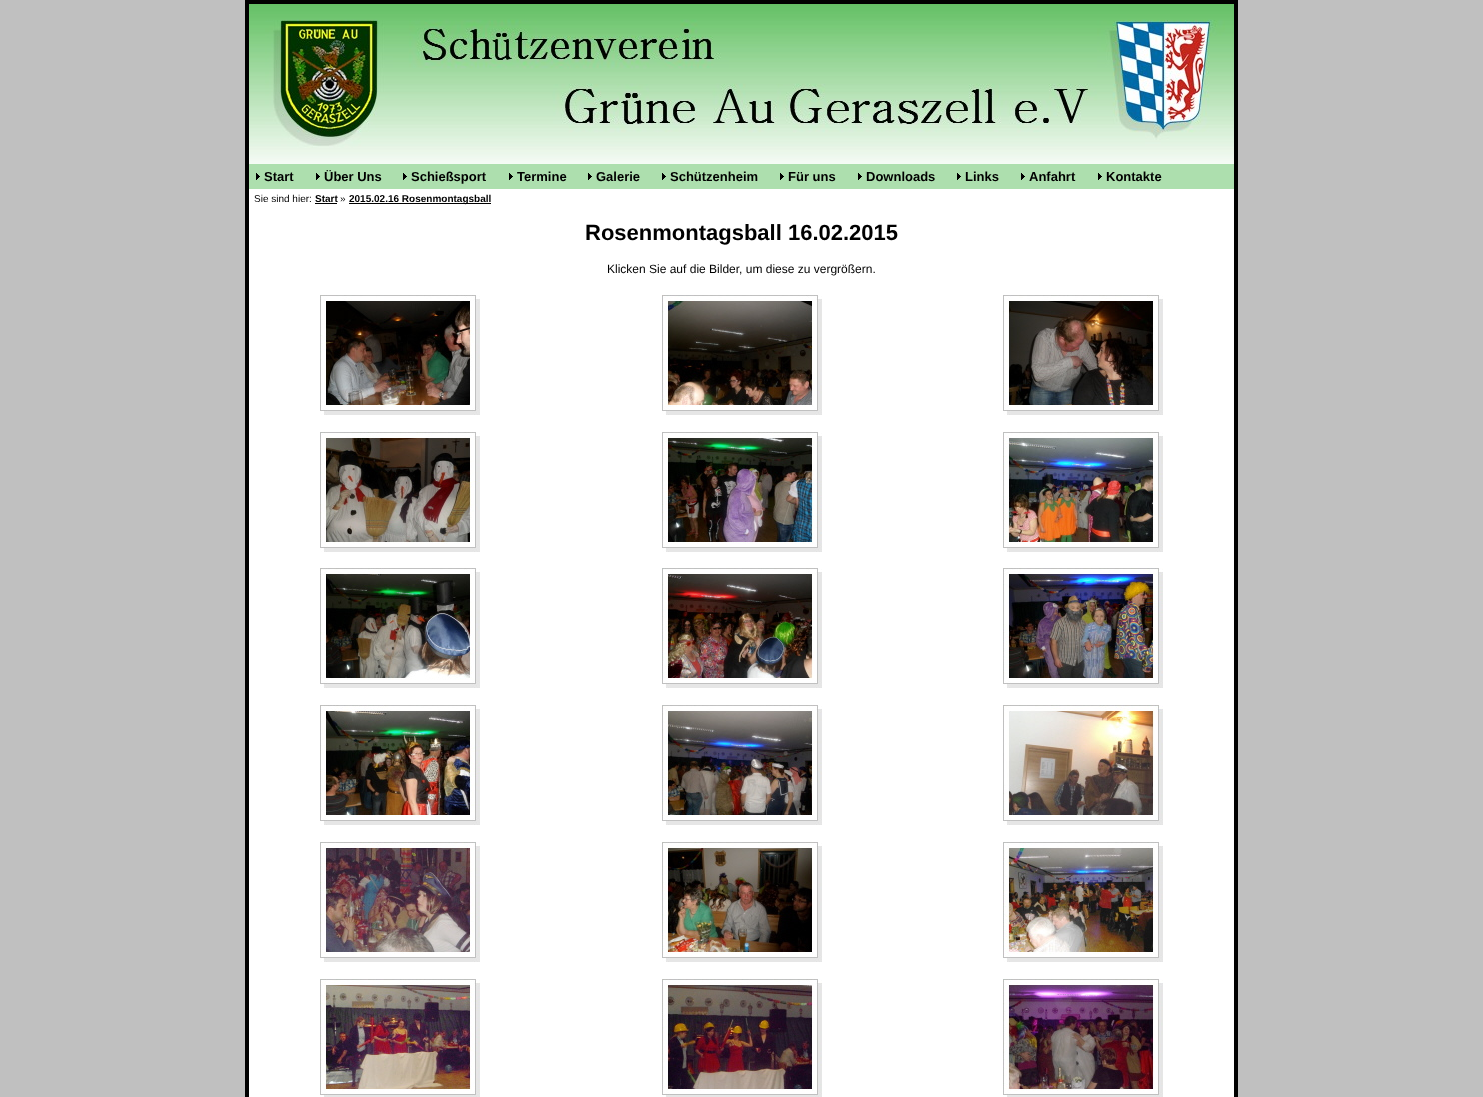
<?xml version="1.0" encoding="UTF-8"?>
<svg xmlns="http://www.w3.org/2000/svg" width="1483" height="1097">
    <rect width="100%" height="100%" fill="#C0C0C0"/>
    <rect x="247" y="2" width="989" height="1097" fill="none" stroke="#000000" stroke-width="4"/>
    <image x="249" y="4" width="985" height="160" href="img_01.png"/>
    <rect x="249" y="164" width="985" height="25" fill="#ADDFAE"/>
    <image x="256" y="173" width="4" height="7" href="img_02.png"/>
    <text x="264" y="181" font-family="Liberation Sans" font-size="13" font-weight="700" fill="#000000">Start</text>
    <image x="316" y="173" width="4" height="7" href="img_02.png"/>
    <text x="324" y="181" font-family="Liberation Sans" font-size="13" font-weight="700" fill="#000000">Über Uns</text>
    <image x="403" y="173" width="4" height="7" href="img_02.png"/>
    <text x="411" y="181" font-family="Liberation Sans" font-size="13" font-weight="700" fill="#000000">Schießsport</text>
    <image x="509" y="173" width="4" height="7" href="img_02.png"/>
    <text x="517" y="181" font-family="Liberation Sans" font-size="13" font-weight="700" fill="#000000">Termine</text>
    <image x="588" y="173" width="4" height="7" href="img_02.png"/>
    <text x="596" y="181" font-family="Liberation Sans" font-size="13" font-weight="700" fill="#000000">Galerie</text>
    <image x="662" y="173" width="4" height="7" href="img_02.png"/>
    <text x="670" y="181" font-family="Liberation Sans" font-size="13" font-weight="700" fill="#000000">Schützenheim</text>
    <image x="780" y="173" width="4" height="7" href="img_02.png"/>
    <text x="788" y="181" font-family="Liberation Sans" font-size="13" font-weight="700" fill="#000000">Für uns</text>
    <image x="858" y="173" width="4" height="7" href="img_02.png"/>
    <text x="866" y="181" font-family="Liberation Sans" font-size="13" font-weight="700" fill="#000000">Downloads</text>
    <image x="957" y="173" width="4" height="7" href="img_02.png"/>
    <text x="965" y="181" font-family="Liberation Sans" font-size="13" font-weight="700" fill="#000000">Links</text>
    <image x="1021" y="173" width="4" height="7" href="img_02.png"/>
    <text x="1029" y="181" font-family="Liberation Sans" font-size="13" font-weight="700" fill="#000000">Anfahrt</text>
    <image x="1098" y="173" width="4" height="7" href="img_02.png"/>
    <text x="1106" y="181" font-family="Liberation Sans" font-size="13" font-weight="700" fill="#000000">Kontakte</text>
    <rect x="249" y="189" width="985" height="908" fill="#FFFFFF"/>
    <text x="254" y="202" font-family="Liberation Sans" font-size="10" fill="#000000">Sie sind hier:</text>
    <text x="315" y="202" font-family="Liberation Sans" font-size="10" font-weight="700" fill="#000000">Start</text>
    <rect x="315" y="203" width="22" height="1" fill="#000000"/>
    <text x="340" y="202" font-family="Liberation Sans" font-size="10" fill="#000000">»</text>
    <rect x="349" y="203" width="142" height="1" fill="#000000"/>
    <text x="349" y="202" font-family="Liberation Sans" font-size="10" font-weight="700" fill="#000000">2015.02.16 Rosenmontagsball</text>
    <text x="585" y="240" font-family="Liberation Sans" font-size="22" font-weight="700" fill="#000000">Rosenmontagsball 16.02.2015</text>
    <text x="607" y="273" font-family="Liberation Sans" font-size="12" fill="#000000">Klicken Sie auf die Bilder, um diese zu vergrößern.</text>
    <image x="320" y="295" width="160" height="120" href="img_03.png"/>
    <image x="662" y="295" width="160" height="120" href="img_04.png"/>
    <image x="1003" y="295" width="160" height="120" href="img_05.png"/>
    <image x="320" y="432" width="160" height="120" href="img_06.png"/>
    <image x="662" y="432" width="160" height="120" href="img_07.png"/>
    <image x="1003" y="432" width="160" height="120" href="img_08.png"/>
    <image x="320" y="568" width="160" height="120" href="img_09.png"/>
    <image x="662" y="568" width="160" height="120" href="img_10.png"/>
    <image x="1003" y="568" width="160" height="120" href="img_11.png"/>
    <image x="320" y="705" width="160" height="120" href="img_12.png"/>
    <image x="662" y="705" width="160" height="120" href="img_13.png"/>
    <image x="1003" y="705" width="160" height="120" href="img_14.png"/>
    <image x="320" y="842" width="160" height="120" href="img_15.png"/>
    <image x="662" y="842" width="160" height="120" href="img_16.png"/>
    <image x="1003" y="842" width="160" height="120" href="img_17.png"/>
    <image x="320" y="979" width="160" height="118" href="img_18.png"/>
    <image x="662" y="979" width="160" height="118" href="img_19.png"/>
    <image x="1003" y="979" width="160" height="118" href="img_20.png"/>
</svg>
